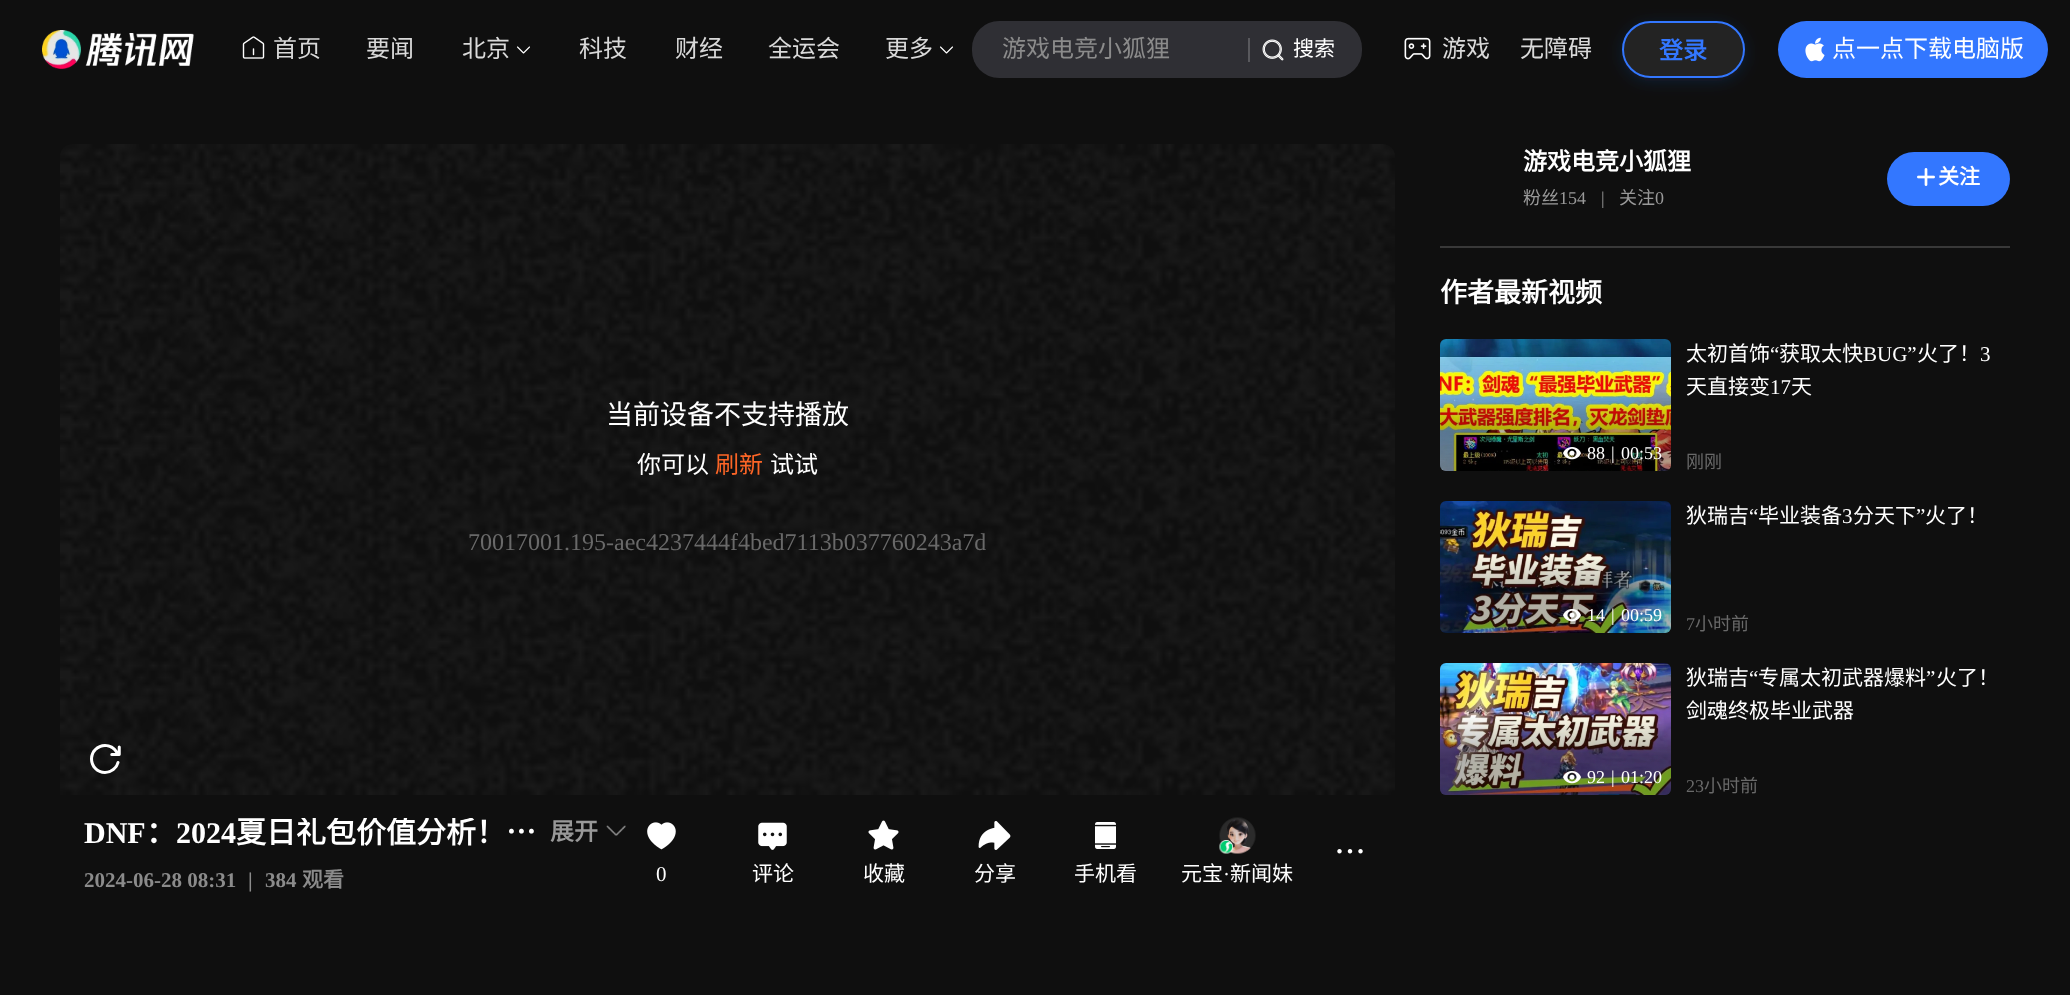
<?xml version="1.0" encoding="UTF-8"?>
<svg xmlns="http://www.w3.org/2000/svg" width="2070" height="995">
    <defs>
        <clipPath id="clip1"><path d="M 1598 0 H 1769 V 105 H 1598 Z M 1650.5 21 H 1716.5 C 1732 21 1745 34 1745 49.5 C 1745 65 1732 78 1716.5 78 H 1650.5 C 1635 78 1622 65 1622 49.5 C 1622 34 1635 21 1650.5 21 Z" clip-rule="evenodd"/></clipPath>
        <filter id="blur1" x="-50%" y="-200%" width="200%" height="500%"><feGaussianBlur stdDeviation="7.5"/></filter>
        <clipPath id="clip2"><rect x="84" y="818" width="467" height="30"/></clipPath>
        <linearGradient id="g1" gradientUnits="userSpaceOnUse" x1="1556" y1="471" x2="1556" y2="339"><stop offset="0.3" stop-color="#000000" stop-opacity="0.3"/><stop offset="0.6" stop-color="#000000" stop-opacity="0"/></linearGradient>
        <linearGradient id="g2" gradientUnits="userSpaceOnUse" x1="1556" y1="633" x2="1556" y2="501"><stop offset="0.3" stop-color="#000000" stop-opacity="0.3"/><stop offset="0.6" stop-color="#000000" stop-opacity="0"/></linearGradient>
        <linearGradient id="g3" gradientUnits="userSpaceOnUse" x1="1556" y1="795" x2="1556" y2="663"><stop offset="0.3" stop-color="#000000" stop-opacity="0.3"/><stop offset="0.6" stop-color="#000000" stop-opacity="0"/></linearGradient>
    </defs>
    <rect width="100%" height="100%" fill="#0F0F0F"/>
    <image x="42" y="30" width="152" height="39" href="img_01.png"/>
    <image x="242" y="36" width="23" height="23" href="img_02.png"/>
    <text x="273" y="57" font-family="Noto Sans CJK SC" font-size="24" fill="#D9D9D9">首页</text>
    <text x="366" y="57" font-family="Noto Sans CJK SC" font-size="24" fill="#D9D9D9">要闻</text>
    <text x="462" y="57" font-family="Noto Sans CJK SC" font-size="24" fill="#D9D9D9">北京</text>
    <path d="M 529.5 47 L 523.5 53 L 517.5 47" fill="none" stroke="#FFFFFF" stroke-width="1.1" stroke-linecap="round" stroke-linejoin="round"/>
    <text x="579" y="57" font-family="Noto Sans CJK SC" font-size="24" fill="#D9D9D9">科技</text>
    <text x="675" y="57" font-family="Noto Sans CJK SC" font-size="24" fill="#D9D9D9">财经</text>
    <text x="768" y="57" font-family="Noto Sans CJK SC" font-size="24" fill="#D9D9D9">全运会</text>
    <text x="885" y="57" font-family="Noto Sans CJK SC" font-size="24" fill="#D9D9D9">更多</text>
    <path d="M 952.5 47 L 946.5 53 L 940.5 47" fill="none" stroke="#FFFFFF" stroke-width="1.1" stroke-linecap="round" stroke-linejoin="round"/>
    <rect x="972" y="21" width="390" height="57" rx="27" fill="#2F2F34"/>
    <text x="1002" y="57" font-family="Noto Sans CJK SC" font-size="24" fill="#8B8B8B">游戏电竞小狐狸</text>
    <rect x="1248" y="38" width="2" height="24" fill="#59595D"/>
    <image x="1262" y="39" width="22" height="22" href="img_03.png"/>
    <text x="1293" y="56" font-family="Noto Sans CJK SC" font-size="21" fill="#FFFFFF">搜索</text>
    <image x="1404" y="37" width="27" height="23" href="img_04.png"/>
    <text x="1442" y="57" font-family="Noto Sans CJK SC" font-size="24" fill="#D9D9D9">游戏</text>
    <text x="1520" y="57" font-family="Noto Sans CJK SC" font-size="24" fill="#D9D9D9">无障碍</text>
    <g clip-path="url(#clip1)">
        <rect x="1622" y="24" width="123" height="57" rx="28.5" fill="#3377FF" fill-opacity="0.16" filter="url(#blur1)"/>
    </g>
    <rect x="1623" y="22" width="121" height="55" rx="27.5" fill="#D9D9D9" fill-opacity="0.1" stroke="#3377FF" stroke-width="2"/>
    <text x="1659" y="59" font-family="Noto Sans CJK SC" font-size="24" font-weight="700" fill="#3377FF">登录</text>
    <rect x="1778" y="21" width="270" height="57" rx="28.5" fill="#3377FF"/>
    <image x="1805" y="37" width="20" height="25" href="img_05.png"/>
    <text x="1832" y="57" font-family="Noto Sans CJK SC" font-size="24" fill="#FFFFFF">点一点下载电脑版</text>
    <image x="60" y="144" width="1335" height="651" href="img_06.png"/>
    <text x="606" y="424" font-family="Noto Sans CJK SC" font-size="27" fill="#FFFFFF">当前设备不支持播放</text>
    <text x="637" y="473" font-family="Noto Sans CJK SC" font-size="24" fill="#FFFFFF">你可以</text>
    <text x="715" y="473" font-family="Noto Sans CJK SC" font-size="24" fill="#FC6526">刷新</text>
    <text x="770" y="473" font-family="Noto Sans CJK SC" font-size="24" fill="#FFFFFF">试试</text>
    <text x="468" y="550" font-family="Liberation Serif" font-size="24" fill="#696969">70017001.195-aec4237444f4bed7113b037760243a7d</text>
    <text x="84" y="843" font-family="Liberation Serif" font-size="30" font-weight="700" fill="#FFFFFF">DNF</text>
    <text x="146" y="843" font-family="Noto Sans CJK SC" font-size="30" font-weight="700" fill="#FFFFFF">：</text>
    <text x="176" y="843" font-family="Liberation Serif" font-size="30" font-weight="700" fill="#FFFFFF">2024</text>
    <g clip-path="url(#clip2)">
        <text x="236" y="843" font-family="Noto Sans CJK SC" font-size="30" font-weight="700" fill="#FFFFFF">夏日礼包价值分析！…</text>
    </g>
    <text x="550" y="840" font-family="Noto Sans CJK SC" font-size="24" font-weight="700" fill="#999999">展开</text>
    <image x="606" y="825" width="20" height="11" href="img_07.png"/>
    <text x="84" y="887" font-family="Liberation Serif" font-size="21" font-weight="700" fill="#8B8B8B">2024-06-28 08:31</text>
    <text x="248" y="887" font-family="Liberation Serif" font-size="21" font-weight="700" fill="#8B8B8B">|</text>
    <text x="265" y="887" font-family="Liberation Serif" font-size="21" font-weight="700" fill="#8B8B8B">384</text>
    <text x="302" y="887" font-family="Noto Sans CJK SC" font-size="21" font-weight="700" fill="#8B8B8B">观看</text>
    <image x="1337" y="849" width="26" height="5" href="img_08.png"/>
    <image x="647" y="822" width="29" height="28" href="img_09.png"/>
    <text x="656" y="881" font-family="Liberation Serif" font-size="21" fill="#FFFFFF">0</text>
    <image x="758" y="822" width="29" height="28" href="img_10.png"/>
    <text x="752" y="881" font-family="Noto Sans CJK SC" font-size="21" fill="#FFFFFF">评论</text>
    <image x="868" y="820" width="31" height="30" href="img_11.png"/>
    <text x="863" y="881" font-family="Noto Sans CJK SC" font-size="21" fill="#FFFFFF">收藏</text>
    <image x="978" y="821" width="33" height="29" href="img_12.png"/>
    <text x="974" y="881" font-family="Noto Sans CJK SC" font-size="21" fill="#FFFFFF">分享</text>
    <image x="1095" y="822" width="21" height="27" href="img_13.png"/>
    <text x="1074" y="881" font-family="Noto Sans CJK SC" font-size="21" fill="#FFFFFF">手机看</text>
    <image x="1219" y="817" width="37" height="37" href="img_14.png"/>
    <image x="1219" y="840" width="14" height="14" href="img_15.png"/>
    <text x="1181" y="881" font-family="Noto Sans CJK SC" font-size="21" fill="#FFFFFF">元宝</text>
    <text x="1223" y="881" font-family="Liberation Serif" font-size="21" fill="#FFFFFF">·</text>
    <text x="1230" y="881" font-family="Noto Sans CJK SC" font-size="21" fill="#FFFFFF">新闻妹</text>
    <text x="1523" y="170" font-family="Noto Sans CJK SC" font-size="24" font-weight="700" fill="#FFFFFF">游戏电竞小狐狸</text>
    <text x="1523" y="204" font-family="Noto Sans CJK SC" font-size="18" fill="#999999">粉丝</text>
    <text x="1559" y="204" font-family="Liberation Serif" font-size="18" fill="#999999">154</text>
    <text x="1601" y="204" font-family="Liberation Serif" font-size="18" fill="#999999">|</text>
    <text x="1619" y="204" font-family="Noto Sans CJK SC" font-size="18" fill="#999999">关注</text>
    <text x="1655" y="204" font-family="Liberation Serif" font-size="18" fill="#999999">0</text>
    <rect x="1887" y="152" width="123" height="54" rx="27" fill="#3377FF"/>
    <image x="1917" y="168" width="18" height="18" href="img_16.png"/>
    <text x="1938" y="184" font-family="Noto Sans CJK SC" font-size="21" font-weight="700" fill="#FFFFFF">关注</text>
    <rect x="1440" y="246" width="570" height="2" fill="#383838"/>
    <text x="1440" y="302" font-family="Noto Sans CJK SC" font-size="27" font-weight="700" fill="#FFFFFF">作者最新视频</text>
    <image x="1440" y="339" width="231" height="132" href="img_17.png"/>
    <rect x="1440" y="339" width="231" height="132" rx="6" fill="url(#g1)"/>
    <image x="1563" y="447" width="18" height="13" href="img_18.png"/>
    <text x="1587" y="459" font-family="Liberation Serif" font-size="18" fill="#FFFFFF">88</text>
    <text x="1611" y="459" font-family="Liberation Serif" font-size="18" fill="#FFFFFF">|</text>
    <text x="1621" y="459" font-family="Liberation Serif" font-size="18" fill="#FFFFFF">00:53</text>
    <text x="1686" y="361" font-family="Noto Sans CJK SC" font-size="21" fill="#FFFFFF">太初首饰</text>
    <text x="1770" y="361" font-family="Liberation Serif" font-size="21" fill="#FFFFFF">“</text>
    <text x="1779" y="361" font-family="Noto Sans CJK SC" font-size="21" fill="#FFFFFF">获取太快</text>
    <text x="1863" y="361" font-family="Liberation Serif" font-size="21" fill="#FFFFFF">BUG”</text>
    <text x="1917" y="361" font-family="Noto Sans CJK SC" font-size="21" fill="#FFFFFF">火了！</text>
    <text x="1980" y="361" font-family="Liberation Serif" font-size="21" fill="#FFFFFF">3</text>
    <text x="1686" y="394" font-family="Noto Sans CJK SC" font-size="21" fill="#FFFFFF">天直接变</text>
    <text x="1770" y="394" font-family="Liberation Serif" font-size="21" fill="#FFFFFF">17</text>
    <text x="1791" y="394" font-family="Noto Sans CJK SC" font-size="21" fill="#FFFFFF">天</text>
    <text x="1686" y="468" font-family="Noto Sans CJK SC" font-size="18" fill="#696969">刚刚</text>
    <image x="1440" y="501" width="231" height="132" href="img_19.png"/>
    <rect x="1440" y="501" width="231" height="132" rx="6" fill="url(#g2)"/>
    <image x="1563" y="609" width="18" height="13" href="img_20.png"/>
    <text x="1587" y="621" font-family="Liberation Serif" font-size="18" fill="#FFFFFF">14</text>
    <text x="1611" y="621" font-family="Liberation Serif" font-size="18" fill="#FFFFFF">|</text>
    <text x="1621" y="621" font-family="Liberation Serif" font-size="18" fill="#FFFFFF">00:59</text>
    <text x="1686" y="523" font-family="Noto Sans CJK SC" font-size="21" fill="#FFFFFF">狄瑞吉</text>
    <text x="1749" y="523" font-family="Liberation Serif" font-size="21" fill="#FFFFFF">“</text>
    <text x="1758" y="523" font-family="Noto Sans CJK SC" font-size="21" fill="#FFFFFF">毕业装备</text>
    <text x="1842" y="523" font-family="Liberation Serif" font-size="21" fill="#FFFFFF">3</text>
    <text x="1853" y="523" font-family="Noto Sans CJK SC" font-size="21" fill="#FFFFFF">分天下</text>
    <text x="1916" y="523" font-family="Liberation Serif" font-size="21" fill="#FFFFFF">”</text>
    <text x="1925" y="523" font-family="Noto Sans CJK SC" font-size="21" fill="#FFFFFF">火了！</text>
    <text x="1686" y="630" font-family="Liberation Serif" font-size="18" fill="#696969">7</text>
    <text x="1695" y="630" font-family="Noto Sans CJK SC" font-size="18" fill="#696969">小时前</text>
    <image x="1440" y="663" width="231" height="132" href="img_21.png"/>
    <rect x="1440" y="663" width="231" height="132" rx="6" fill="url(#g3)"/>
    <image x="1563" y="771" width="18" height="13" href="img_22.png"/>
    <text x="1587" y="783" font-family="Liberation Serif" font-size="18" fill="#FFFFFF">92</text>
    <text x="1611" y="783" font-family="Liberation Serif" font-size="18" fill="#FFFFFF">|</text>
    <text x="1621" y="783" font-family="Liberation Serif" font-size="18" fill="#FFFFFF">01:20</text>
    <text x="1686" y="685" font-family="Noto Sans CJK SC" font-size="21" fill="#FFFFFF">狄瑞吉</text>
    <text x="1749" y="685" font-family="Liberation Serif" font-size="21" fill="#FFFFFF">“</text>
    <text x="1758" y="685" font-family="Noto Sans CJK SC" font-size="21" fill="#FFFFFF">专属太初武器爆料</text>
    <text x="1926" y="685" font-family="Liberation Serif" font-size="21" fill="#FFFFFF">”</text>
    <text x="1936" y="685" font-family="Noto Sans CJK SC" font-size="21" fill="#FFFFFF">火了！</text>
    <text x="1686" y="718" font-family="Noto Sans CJK SC" font-size="21" fill="#FFFFFF">剑魂终极毕业武器</text>
    <text x="1686" y="792" font-family="Liberation Serif" font-size="18" fill="#696969">23</text>
    <text x="1704" y="792" font-family="Noto Sans CJK SC" font-size="18" fill="#696969">小时前</text>
</svg>
